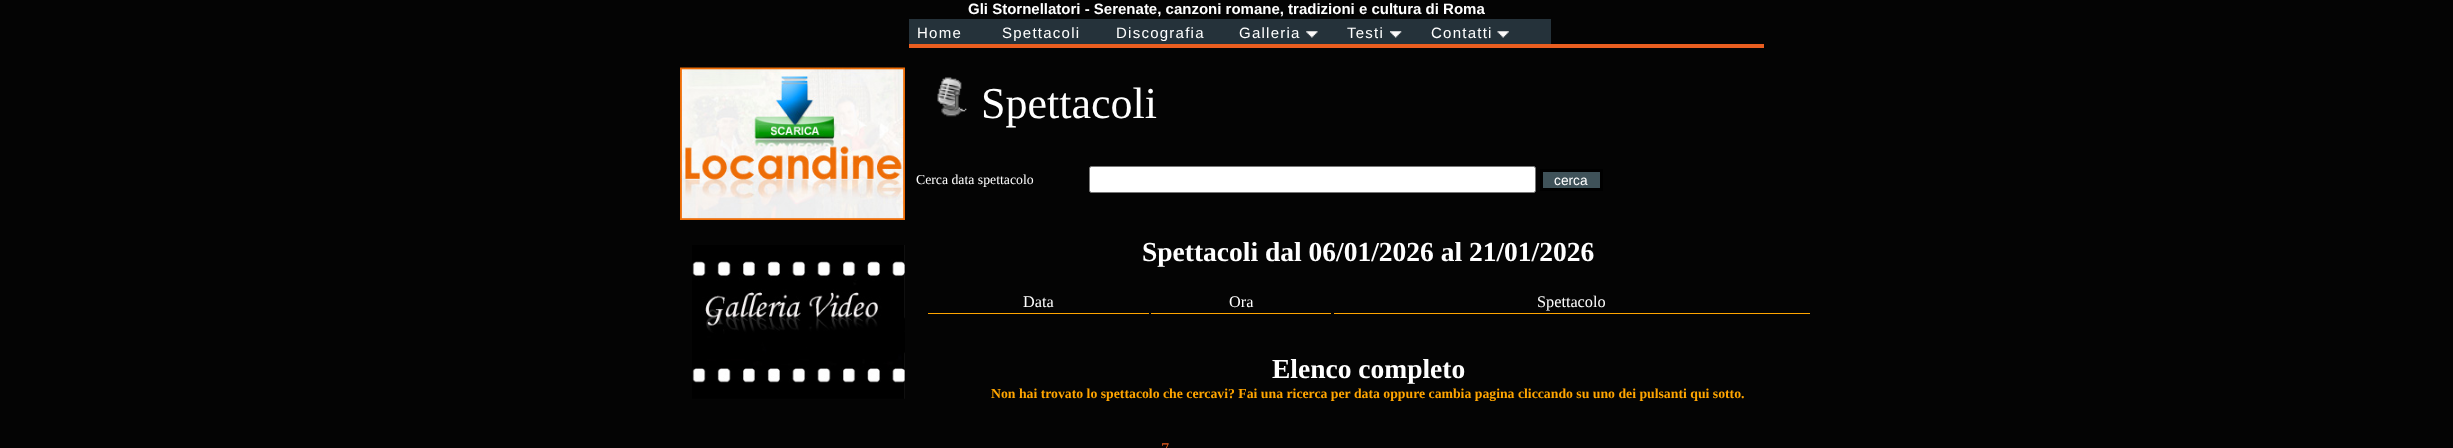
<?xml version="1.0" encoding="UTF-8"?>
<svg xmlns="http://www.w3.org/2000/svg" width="2453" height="448">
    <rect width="100%" height="100%" fill="#040404"/>
    <text x="968" y="14" font-family="Liberation Sans" font-size="15" font-weight="700" fill="#FFFFFF">Gli Stornellatori - Serenate, canzoni romane, tradizioni e cultura di Roma</text>
    <image x="680" y="67" width="225" height="153" href="img_01.png"/>
    <image x="692" y="245" width="213" height="154" href="img_02.png"/>
    <rect x="909" y="19" width="642" height="25" fill="#25323A"/>
    <text x="917" y="38" font-family="Liberation Sans" font-size="15" letter-spacing="1.25" fill="#FFFFFF">Home</text>
    <text x="1002" y="38" font-family="Liberation Sans" font-size="15" letter-spacing="1.25" fill="#FFFFFF">Spettacoli</text>
    <text x="1116" y="38" font-family="Liberation Sans" font-size="15" letter-spacing="1.25" fill="#FFFFFF">Discografia</text>
    <text x="1239" y="38" font-family="Liberation Sans" font-size="15" letter-spacing="1.25" fill="#FFFFFF">Galleria</text>
    <image x="1306" y="31" width="12" height="7" href="img_03.png"/>
    <text x="1347" y="38" font-family="Liberation Sans" font-size="15" letter-spacing="1.25" fill="#FFFFFF">Testi</text>
    <image x="1390" y="31" width="12" height="7" href="img_04.png"/>
    <text x="1431" y="38" font-family="Liberation Sans" font-size="15" letter-spacing="1.25" fill="#FFFFFF">Contatti</text>
    <image x="1497" y="31" width="12" height="7" href="img_05.png"/>
    <rect x="909" y="44" width="855" height="4" fill="#EA5E20"/>
    <image x="937" y="77" width="30" height="40" href="img_06.png"/>
    <text x="981" y="118" font-family="Liberation Serif" font-size="44" fill="#FFFFFF">Spettacoli</text>
    <text x="916" y="184" font-family="Liberation Serif" font-size="13.75" fill="#FFFFFF">Cerca data spettacolo</text>
    <rect x="1089.5" y="166.5" width="446" height="26" rx="2" fill="#FFFFFF" stroke="#767676"/>
    <rect x="1541.5" y="170.5" width="60" height="19" fill="#3F5259" stroke="#000000" stroke-width="3"/>
    <text x="1554" y="185" font-family="Liberation Sans" font-size="13.75" fill="#FFFFFF">cerca</text>
    <text x="1142" y="261" font-family="Liberation Serif" font-size="27.5" font-weight="700" fill="#FFFFFF">Spettacoli dal 06/01/2026 al 21/01/2026</text>
    <rect x="928" y="313" width="221" height="1" fill="#FFA500"/>
    <text x="1023" y="307" font-family="Liberation Serif" font-size="16.25" fill="#FFFFFF">Data</text>
    <rect x="1151" y="313" width="180" height="1" fill="#FFA500"/>
    <text x="1229" y="307" font-family="Liberation Serif" font-size="16.25" fill="#FFFFFF">Ora</text>
    <rect x="1334" y="313" width="476" height="1" fill="#FFA500"/>
    <text x="1537" y="307" font-family="Liberation Serif" font-size="16.25" fill="#FFFFFF">Spettacolo</text>
    <text x="1272" y="378" font-family="Liberation Serif" font-size="27.5" font-weight="700" fill="#FFFFFF">Elenco completo</text>
    <text x="991" y="398" font-family="Liberation Serif" font-size="13.75" font-weight="700" fill="#FFA500">Non hai trovato lo spettacolo che cercavi? Fai una ricerca per data oppure cambia pagina cliccando su uno dei pulsanti qui sotto.</text>
    <text x="1161" y="454" font-family="Liberation Serif" font-size="16.25" fill="#EA5E20">7</text>
</svg>
